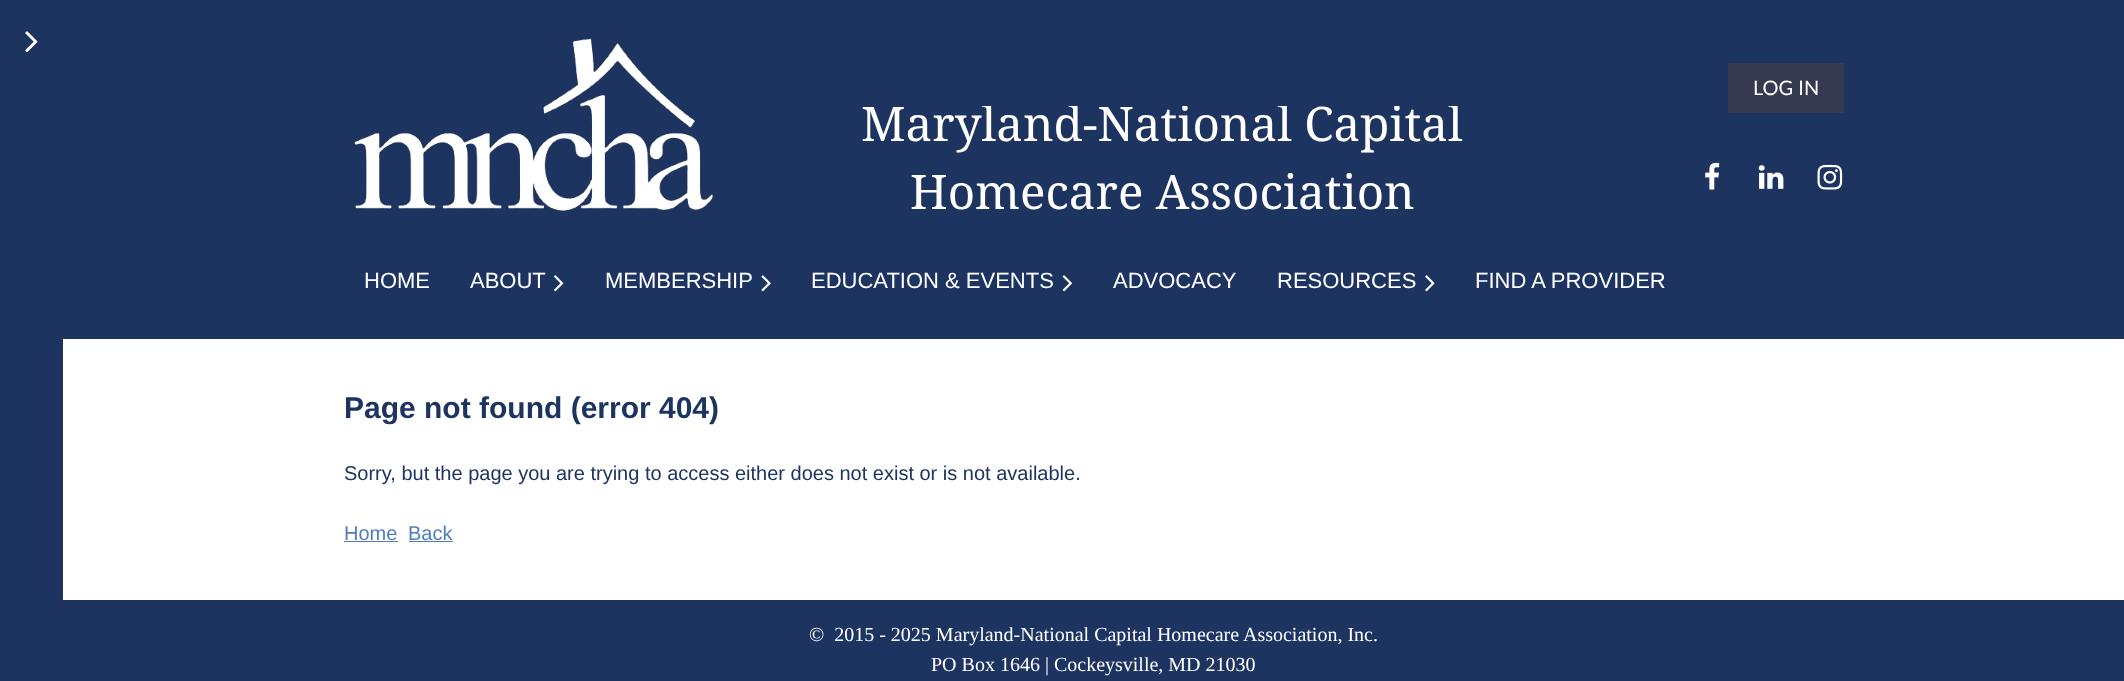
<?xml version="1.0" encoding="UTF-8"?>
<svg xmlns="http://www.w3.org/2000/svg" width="2124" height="681">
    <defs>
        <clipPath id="clip1"><rect x="784" y="106" width="757" height="115"/></clipPath>
    </defs>
    <rect width="100%" height="100%" fill="#FFFFFF"/>
    <rect x="0" y="0" width="63" height="681" fill="#1D3461"/>
    <image x="25" y="31" width="13" height="22" href="img_01.png"/>
    <rect x="63" y="0" width="2061" height="339" fill="#1D3461"/>
    <image x="354" y="38" width="360" height="173" href="img_02.png"/>
    <rect x="1728" y="63" width="116" height="50" fill="#353A50"/>
    <text x="1753" y="95" font-family="Lato" font-size="20" fill="#FFFFFF">LOG IN</text>
    <image x="1705" y="162" width="15" height="28" href="img_03.png"/>
    <image x="1758" y="165" width="26" height="24" href="img_04.png"/>
    <image x="1817" y="164" width="26" height="26" href="img_05.png"/>
    <g clip-path="url(#clip1)">
        <text x="861" y="141" font-family="Droid Serif" font-size="47.5" fill="#FFFFFF">Maryland-National Capital</text>
    </g>
    <text x="910" y="209" font-family="Droid Serif" font-size="47.5" fill="#FFFFFF">Homecare Association</text>
    <text x="364" y="288" font-family="Liberation Sans" font-size="22" fill="#FFFFFF">HOME</text>
    <text x="470" y="288" font-family="Liberation Sans" font-size="22" fill="#FFFFFF">ABOUT</text>
    <image x="554" y="275" width="10" height="17" href="img_06.png"/>
    <text x="605" y="288" font-family="Liberation Sans" font-size="22" fill="#FFFFFF">MEMBERSHIP</text>
    <image x="761" y="275" width="10" height="17" href="img_07.png"/>
    <text x="811" y="288" font-family="Liberation Sans" font-size="22" fill="#FFFFFF">EDUCATION &amp; EVENTS</text>
    <image x="1062" y="275" width="10" height="17" href="img_08.png"/>
    <text x="1113" y="288" font-family="Liberation Sans" font-size="22" fill="#FFFFFF">ADVOCACY</text>
    <text x="1277" y="288" font-family="Liberation Sans" font-size="22" fill="#FFFFFF">RESOURCES</text>
    <image x="1425" y="275" width="10" height="17" href="img_09.png"/>
    <text x="1475" y="288" font-family="Liberation Sans" font-size="22" fill="#FFFFFF">FIND A PROVIDER</text>
    <text x="344" y="418" font-family="Liberation Sans" font-size="30" font-weight="700" fill="#1D3461">Page not found (error 404)</text>
    <text x="344" y="480" font-family="Liberation Sans" font-size="20" fill="#1D3461">Sorry, but the page you are trying to access either does not exist or is not available.</text>
    <text x="344" y="540" font-family="Liberation Sans" font-size="20" fill="#507DBC">Home</text>
    <rect x="344" y="541" width="54" height="1" fill="#507DBC"/>
    <text x="408" y="540" font-family="Liberation Sans" font-size="20" fill="#507DBC">Back</text>
    <rect x="409" y="541" width="44" height="1" fill="#507DBC"/>
    <rect x="63" y="600" width="2061" height="81" fill="#1D3461"/>
    <text x="809" y="641" font-family="Liberation Serif" font-size="20" fill="#FFFFFF" xml:space="preserve">©  2015 - 2025 Maryland-National Capital Homecare Association, Inc.</text>
    <text x="931" y="671" font-family="Liberation Serif" font-size="20" fill="#FFFFFF">PO Box 1646 | Cockeysville, MD 21030</text>
</svg>
